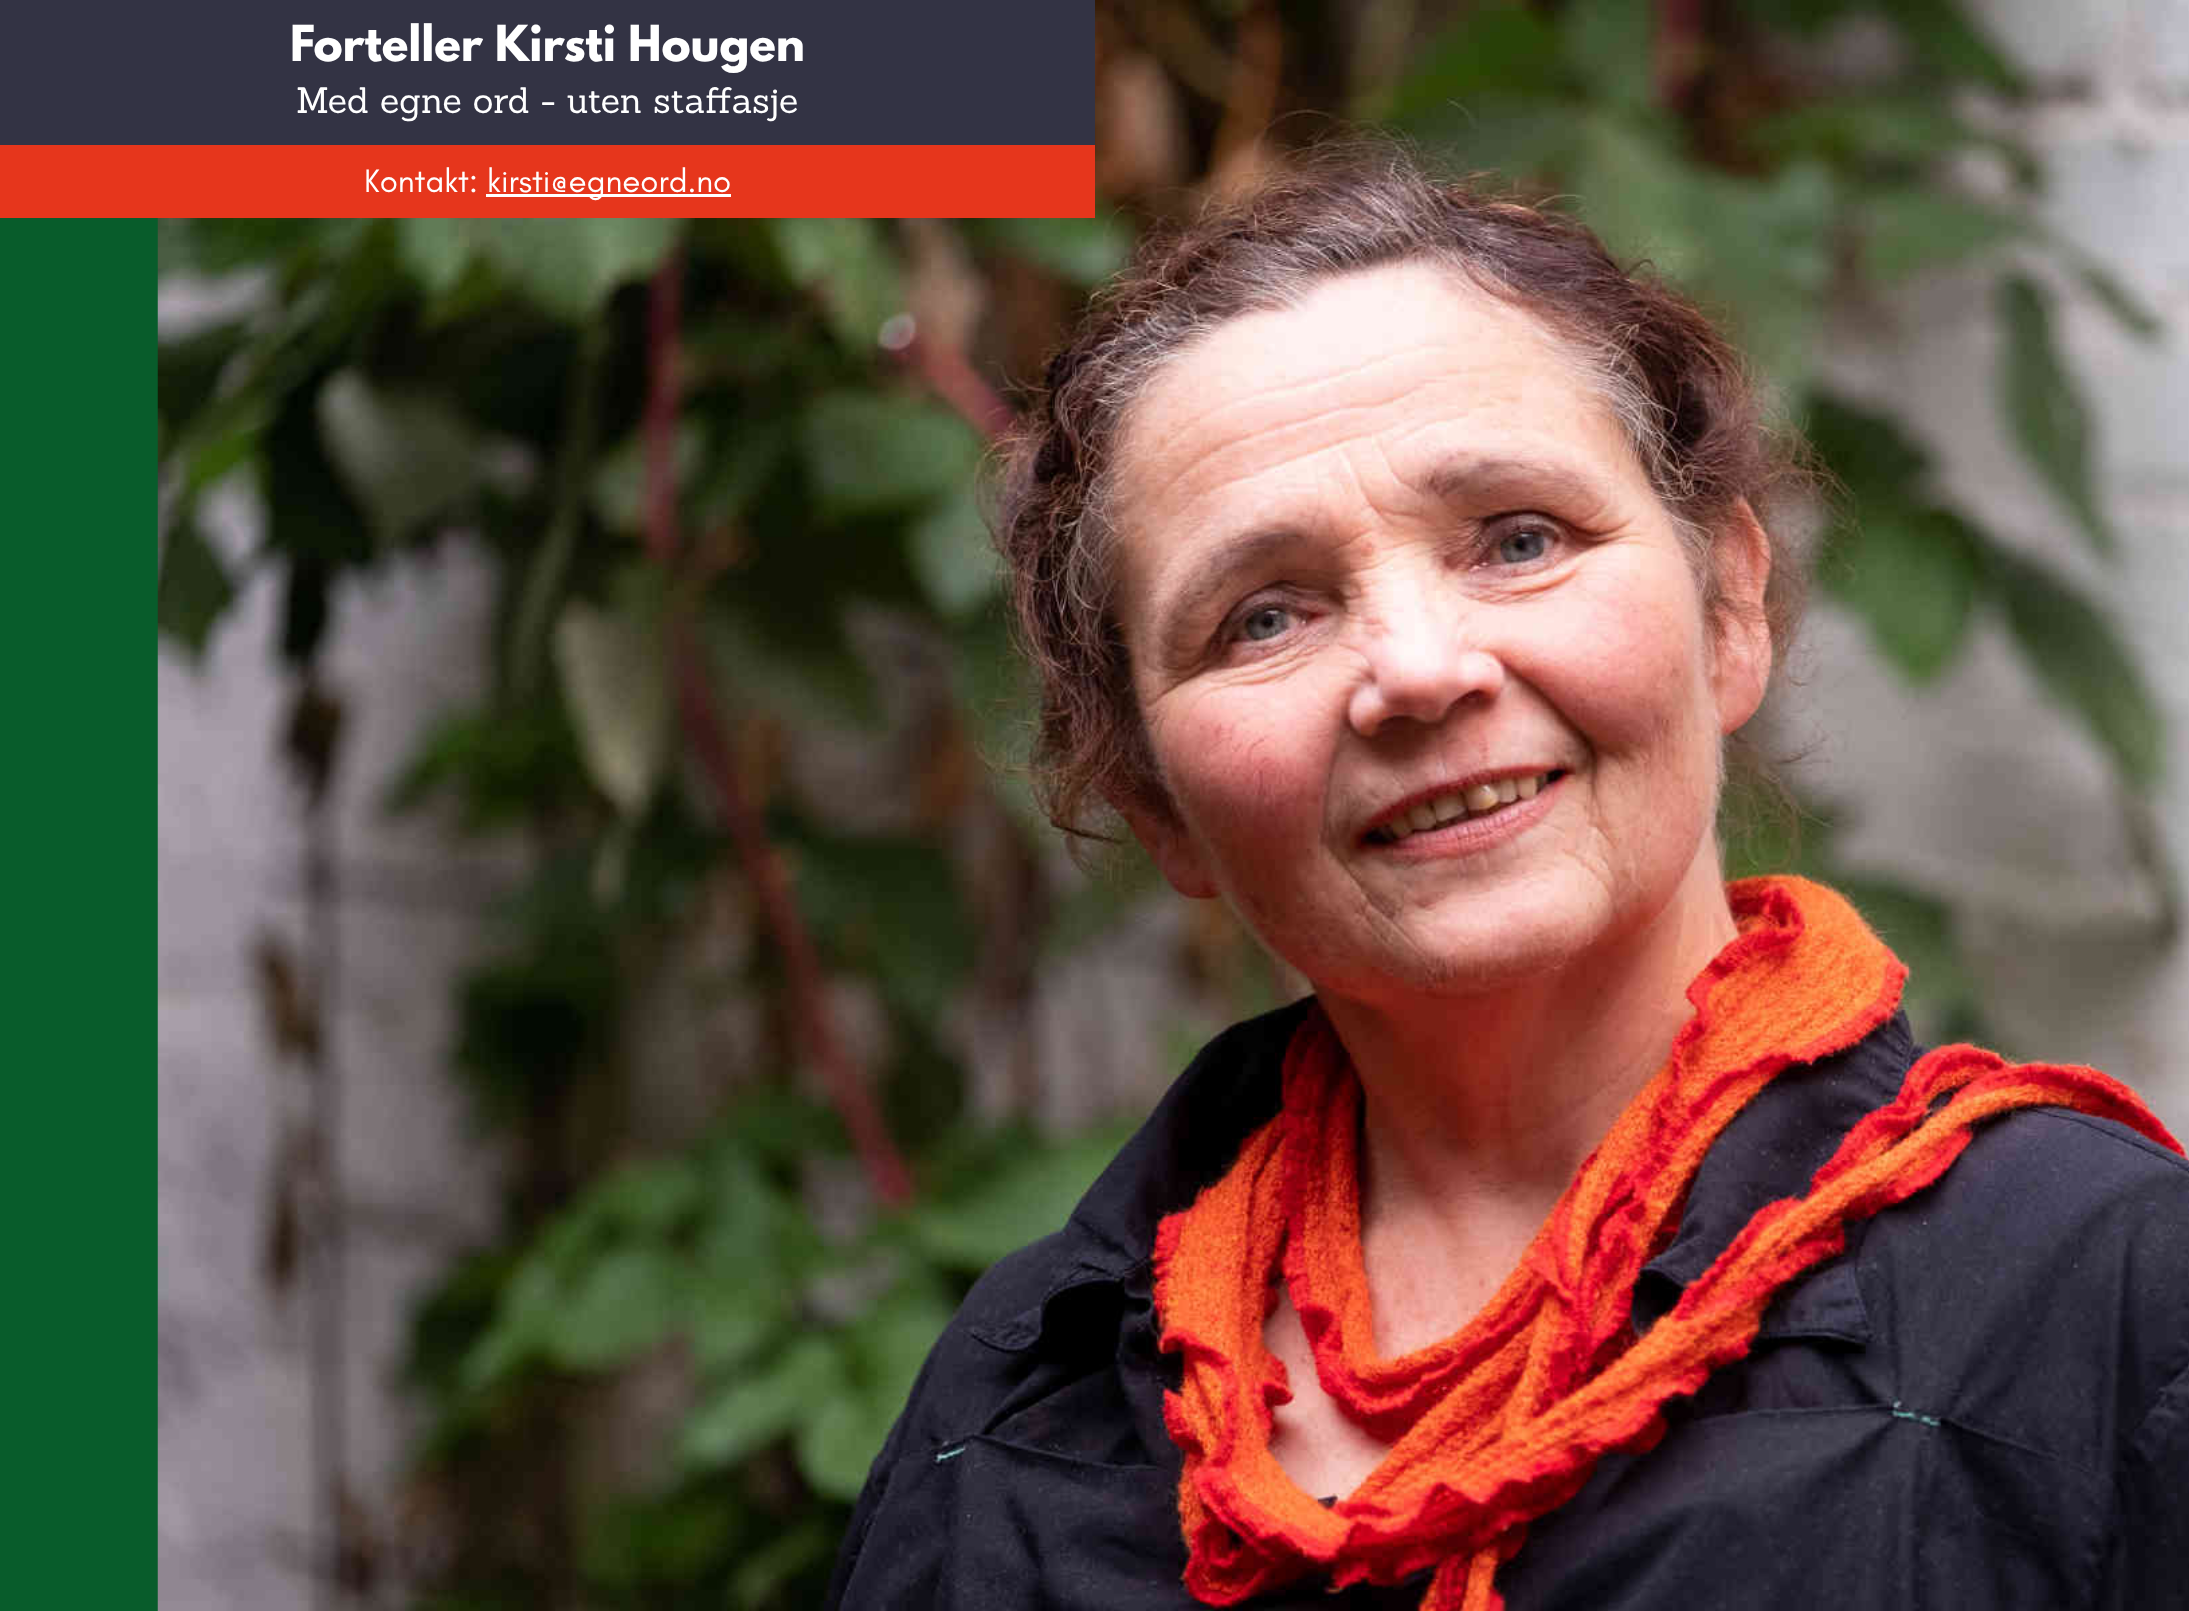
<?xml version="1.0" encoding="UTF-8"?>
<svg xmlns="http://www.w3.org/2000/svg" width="2189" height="1611">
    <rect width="100%" height="100%" fill="#FFFFFF"/>
    <image x="0" y="0" width="2189" height="1611" href="img_01.png"/>
    <rect x="0" y="0" width="1095" height="145" fill="#333344"/>
    <text x="290" y="61" font-family="League Spartan" font-size="44" font-weight="700" fill="#FFFFFF">Forteller Kirsti Hougen</text>
    <text x="296" y="113" font-family="Sanchez" font-size="35.75" fill="#FFFFFF">Med egne ord - uten staffasje</text>
    <rect x="0" y="145" width="1095" height="73" fill="#E6361C"/>
    <text x="364" y="192" font-family="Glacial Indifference" font-size="33" fill="#FFFFFF">Kontakt:</text>
    <rect x="486" y="194" width="245" height="3" fill="#FFFFFF"/>
    <text x="487" y="192" font-family="Glacial Indifference" font-size="33" fill="#FFFFFF">kirsti@egneord.no</text>
</svg>
